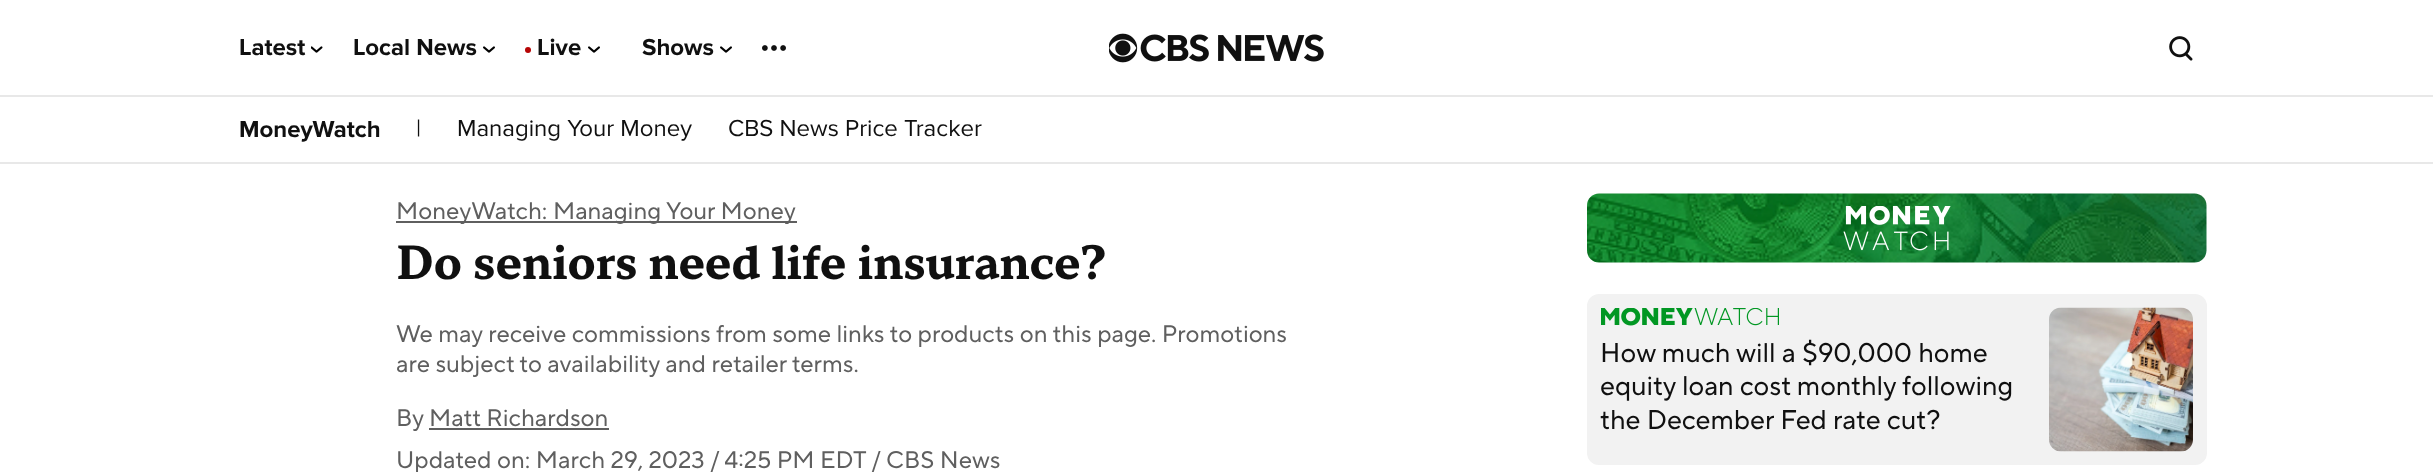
<?xml version="1.0" encoding="UTF-8"?>
<svg xmlns="http://www.w3.org/2000/svg" width="2433" height="472">
    <rect width="100%" height="100%" fill="#FFFFFF"/>
    <rect x="0" y="95" width="2433" height="2" fill="#E8E8E8"/>
    <text x="239" y="55" font-family="Proxima Nova" font-size="24" font-weight="700" fill="#101010">Latest</text>
    <image x="311" y="46" width="12" height="7" href="img_01.png"/>
    <text x="353" y="55" font-family="Proxima Nova" font-size="24" font-weight="700" fill="#101010">Local News</text>
    <image x="483" y="46" width="12" height="7" href="img_02.png"/>
    <circle cx="528" cy="50" r="3" fill="#B60505"/>
    <text x="537" y="55" font-family="Proxima Nova" font-size="24" font-weight="700" fill="#101010">Live</text>
    <image x="588" y="46" width="12" height="7" href="img_02.png"/>
    <text x="642" y="55" font-family="Proxima Nova" font-size="24" font-weight="700" fill="#101010">Shows</text>
    <image x="720" y="46" width="12" height="7" href="img_02.png"/>
    <image x="762" y="45" width="24" height="6" href="img_03.png"/>
    <image x="1109" y="33" width="215" height="30" href="img_04.png"/>
    <image x="2169" y="36" width="24" height="25" href="img_05.png"/>
    <rect x="0" y="162" width="2433" height="2" fill="#E8E8E8"/>
    <text x="239" y="137" font-family="Proxima Nova" font-size="24" font-weight="700" fill="#101010">MoneyWatch</text>
    <text x="416" y="136" font-family="Proxima Nova" font-size="24" fill="#101010">|</text>
    <text x="457" y="136" font-family="Proxima Nova" font-size="24" fill="#101010">Managing Your Money</text>
    <text x="728" y="136" font-family="Proxima Nova" font-size="24" fill="#101010">CBS News Price Tracker</text>
    <rect x="396" y="221" width="401" height="2" fill="#5F5F5F"/>
    <text x="396" y="219" font-family="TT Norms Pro" font-size="24" fill="#5F5F5F">MoneyWatch: Managing Your Money</text>
    <text x="396" y="279" font-family="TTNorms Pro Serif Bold" font-size="48" font-weight="700" fill="#101010">Do seniors need life insurance?</text>
    <text font-family="TT Norms Pro" font-size="24" fill="#5F5F5F">
        <tspan x="396" y="342">We may receive commissions from some links to products on this page. Promotions</tspan>
        <tspan x="396" y="372">are subject to availability and retailer terms.</tspan>
    </text>
    <text x="396" y="426" font-family="TT Norms Pro" font-size="24" fill="#5F5F5F">By Matt Richardson</text>
    <rect x="429" y="428" width="180" height="2" fill="#5F5F5F"/>
    <text x="396" y="468" font-family="TT Norms Pro" font-size="24" fill="#5F5F5F">Updated on: March 29, 2023 / 4:25 PM EDT / CBS News</text>
    <image x="1587" y="193" width="620" height="70" href="img_06.png"/>
    <image x="1843" y="206" width="108" height="45" href="img_07.png"/>
    <rect x="1588" y="295" width="618" height="169" rx="11" fill="#F2F2F2" stroke="#F2F2F2" stroke-width="2"/>
    <image x="1601" y="308" width="178" height="18" href="img_08.png"/>
    <text font-family="TT Norms Pro" font-size="27" fill="#101010">
        <tspan x="1600" y="362">How much will a $90,000 home</tspan>
        <tspan x="1600" y="395">equity loan cost monthly following</tspan>
        <tspan x="1600" y="429">the December Fed rate cut?</tspan>
    </text>
    <image x="2049" y="307" width="144" height="145" href="img_09.png"/>
</svg>
